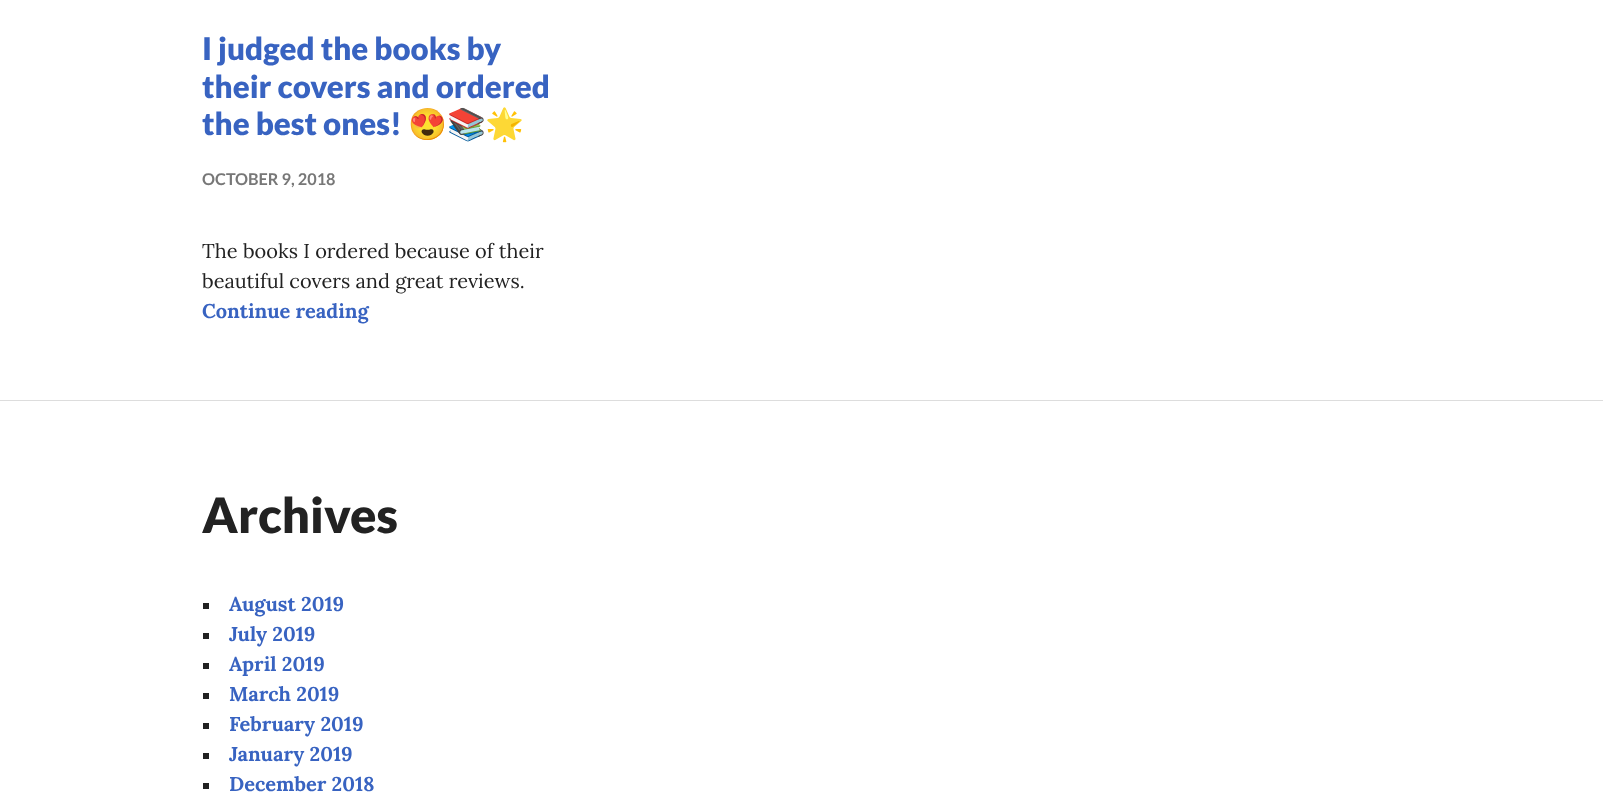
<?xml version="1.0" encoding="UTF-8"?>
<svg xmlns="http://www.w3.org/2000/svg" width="1603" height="799">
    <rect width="100%" height="100%" fill="#FFFFFF"/>
    <text font-family="Lato" font-size="31.25" font-weight="900" fill="#3863C1">
        <tspan x="202" y="60">I judged the books by</tspan>
        <tspan x="202" y="98">their covers and ordered</tspan>
        <tspan x="202" y="135">the best ones!</tspan>
    </text>
    <text x="408" y="135" font-family="Noto Color Emoji" font-size="31.25" font-weight="700" fill="#3863C1">😍📚🌟</text>
    <text x="202" y="185" font-family="Lato" font-size="16.25" font-weight="700" fill="#777777">OCTOBER 9, 2018</text>
    <text font-family="Lora" font-size="20" fill="#222222">
        <tspan x="202" y="258">The books I ordered because of their</tspan>
        <tspan x="202" y="288">beautiful covers and great reviews.</tspan>
    </text>
    <text x="202" y="318" font-family="Lora" font-size="20" font-weight="700" fill="#3863C1">Continue reading</text>
    <rect x="0" y="400" width="1603" height="1" fill="#DDDDDD"/>
    <text x="202" y="533" font-family="Lato" font-size="48.75" font-weight="900" fill="#222222">Archives</text>
    <rect x="203" y="603" width="6" height="6" fill="#222222"/>
    <text x="229" y="611" font-family="Lora" font-size="20" font-weight="700" fill="#3863C1">August 2019</text>
    <rect x="203" y="633" width="6" height="6" fill="#222222"/>
    <text x="229" y="641" font-family="Lora" font-size="20" font-weight="700" fill="#3863C1">July 2019</text>
    <rect x="203" y="663" width="6" height="6" fill="#222222"/>
    <text x="229" y="671" font-family="Lora" font-size="20" font-weight="700" fill="#3863C1">April 2019</text>
    <rect x="203" y="693" width="6" height="6" fill="#222222"/>
    <text x="229" y="701" font-family="Lora" font-size="20" font-weight="700" fill="#3863C1">March 2019</text>
    <rect x="203" y="723" width="6" height="6" fill="#222222"/>
    <text x="229" y="731" font-family="Lora" font-size="20" font-weight="700" fill="#3863C1">February 2019</text>
    <rect x="203" y="753" width="6" height="6" fill="#222222"/>
    <text x="229" y="761" font-family="Lora" font-size="20" font-weight="700" fill="#3863C1">January 2019</text>
    <rect x="203" y="783" width="6" height="6" fill="#222222"/>
    <text x="229" y="791" font-family="Lora" font-size="20" font-weight="700" fill="#3863C1">December 2018</text>
</svg>
